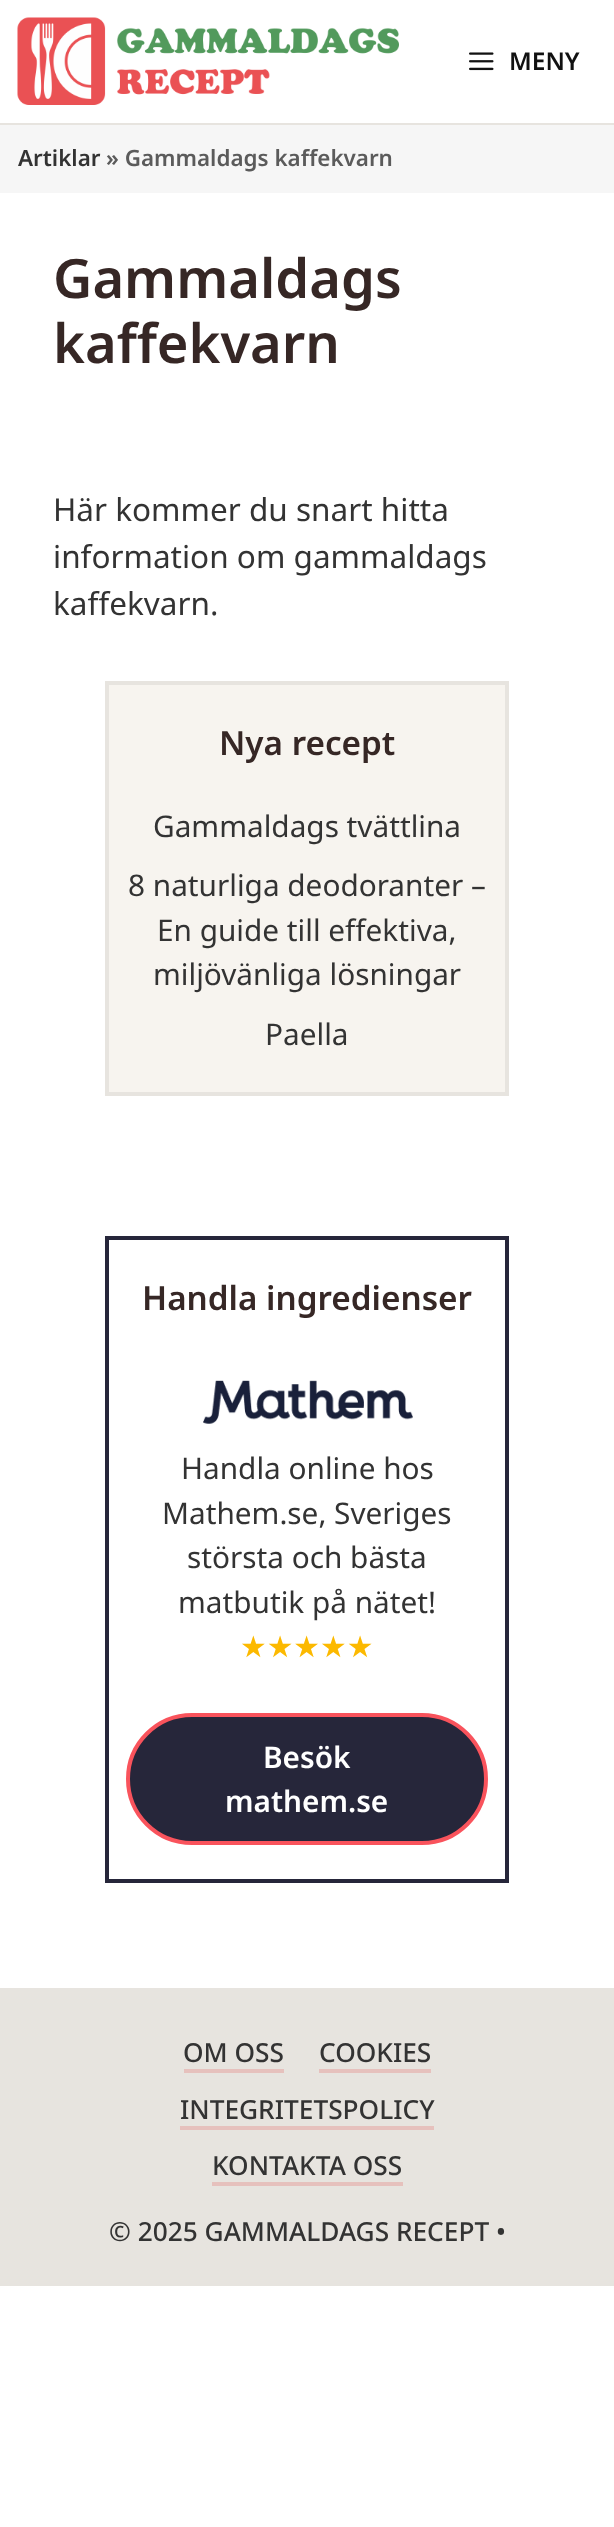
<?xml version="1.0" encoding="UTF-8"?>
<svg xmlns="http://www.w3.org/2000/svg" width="614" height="2527">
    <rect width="100%" height="100%" fill="#FFFFFF"/>
    <rect x="0" y="123" width="614" height="2" fill="#E7E4DF"/>
    <image x="17" y="17" width="382" height="88" href="img_01.png"/>
    <image x="469" y="52" width="25" height="19" href="img_02.png"/>
    <text x="509" y="70" font-family="Noto Sans" font-size="24.5" font-weight="600" fill="#111111">MENY</text>
    <rect x="0" y="125" width="614" height="68" fill="#F6F6F6"/>
    <text x="18" y="166" font-family="Noto Sans" font-size="22.4" font-weight="600" fill="#333333">Artiklar</text>
    <text x="106" y="166" font-family="Noto Sans" font-size="22.4" font-weight="600" fill="#5B5B5B">» Gammaldags kaffekvarn</text>
    <text font-family="Noto Sans" font-size="54.25" font-weight="600" fill="#362725">
        <tspan x="53" y="298">Gammaldags</tspan>
        <tspan x="53" y="363">kaffekvarn</tspan>
    </text>
    <text font-family="Noto Sans" font-size="31.5" fill="#333333">
        <tspan x="53" y="521">Här kommer du snart hitta</tspan>
        <tspan x="53" y="568">information om gammaldags</tspan>
        <tspan x="53" y="615">kaffekvarn.</tspan>
    </text>
    <rect x="107" y="683" width="400" height="411" fill="#F7F4EF" stroke="#E7E4DF" stroke-width="4"/>
    <text x="219" y="755" font-family="Noto Sans" font-size="33.25" font-weight="600" fill="#362725">Nya recept</text>
    <text x="153" y="837" font-family="Noto Sans" font-size="29.75" fill="#333333">Gammaldags tvättlina</text>
    <text x="128" y="896" font-family="Noto Sans" font-size="29.75" fill="#333333">8 naturliga deodoranter –</text>
    <text x="157" y="941" font-family="Noto Sans" font-size="29.75" fill="#333333">En guide till effektiva,</text>
    <text x="153" y="985" font-family="Noto Sans" font-size="29.75" fill="#333333">miljövänliga lösningar</text>
    <text x="265" y="1045" font-family="Noto Sans" font-size="29.75" fill="#333333">Paella</text>
    <rect x="107" y="1238" width="400" height="643" fill="none" stroke="#26263A" stroke-width="4"/>
    <text x="142" y="1310" font-family="Noto Sans" font-size="33.25" font-weight="600" fill="#362725">Handla ingredienser</text>
    <image x="203" y="1380" width="210" height="44" href="img_03.png"/>
    <text x="181" y="1479" font-family="Noto Sans" font-size="29.75" fill="#333333">Handla online hos</text>
    <text x="162" y="1524" font-family="Noto Sans" font-size="29.75" fill="#333333">Mathem.se, Sveriges</text>
    <text x="187" y="1568" font-family="Noto Sans" font-size="29.75" fill="#333333">största och bästa</text>
    <text x="178" y="1613" font-family="Noto Sans" font-size="29.75" fill="#333333">matbutik på nätet!</text>
    <text x="240" y="1657" font-family="DejaVu Sans" font-size="29.75" fill="#FCB900">★★★★★</text>
    <rect x="128" y="1715" width="358" height="128" rx="64" fill="#26263A" stroke="#F9535C" stroke-width="4"/>
    <text x="263" y="1768" font-family="Noto Sans" font-size="29.75" font-weight="600" fill="#FFFFFF">Besök</text>
    <text x="225" y="1812" font-family="Noto Sans" font-size="29.75" font-weight="600" fill="#FFFFFF">mathem.se</text>
    <rect x="0" y="1988" width="614" height="298" fill="#E7E4DF"/>
    <text x="183" y="2062" font-family="Noto Sans" font-size="26.25" font-weight="500" fill="#333333">OM OSS</text>
    <rect x="184" y="2069" width="100" height="4" fill="#E6C1BD"/>
    <text x="319" y="2062" font-family="Noto Sans" font-size="26.25" font-weight="500" fill="#333333">COOKIES</text>
    <rect x="319" y="2069" width="112" height="4" fill="#E6C1BD"/>
    <text x="180" y="2119" font-family="Noto Sans" font-size="26.25" font-weight="500" fill="#333333">INTEGRITETSPOLICY</text>
    <rect x="180" y="2126" width="254" height="4" fill="#E6C1BD"/>
    <text x="212" y="2175" font-family="Noto Sans" font-size="26.25" font-weight="500" fill="#333333">KONTAKTA OSS</text>
    <rect x="212" y="2182" width="191" height="4" fill="#E6C1BD"/>
    <text x="109" y="2241" font-family="Noto Sans" font-size="26.25" font-weight="500" fill="#333333">© 2025 GAMMALDAGS RECEPT •</text>
</svg>
